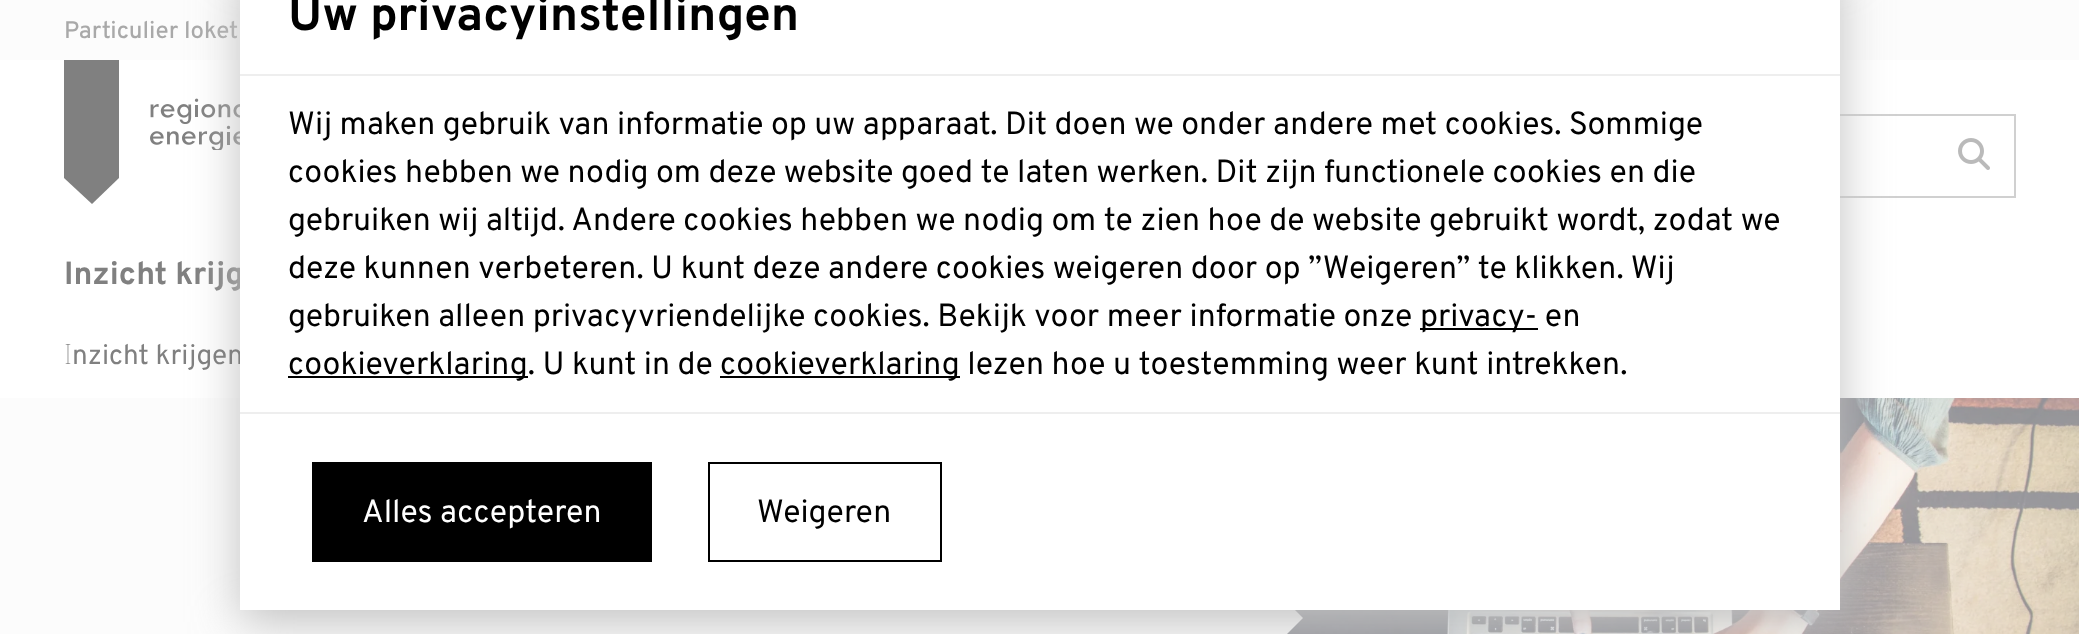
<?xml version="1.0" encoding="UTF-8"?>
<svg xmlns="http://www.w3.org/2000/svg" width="2079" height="634">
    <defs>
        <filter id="blur1" x="-50%" y="-200%" width="200%" height="500%"><feGaussianBlur stdDeviation="24"/></filter>
    </defs>
    <rect width="100%" height="100%" fill="#FFFFFF"/>
    <rect x="0" y="0" width="2079" height="60" fill="#FCFCFC"/>
    <text x="64" y="38" font-family="Overpass" font-size="24" font-weight="500" fill="#A9A9A9">Particulier loket</text>
    <path d="M 64 60 H 119 V 178 L 92 204 L 64 178 Z" fill="#808080"/>
    <image x="150" y="98" width="90" height="52" href="img_01.png"/>
    <rect x="1497" y="115" width="518" height="82" fill="none" stroke="#D0D0D0" stroke-width="2"/>
    <image x="1958" y="138" width="32" height="32" href="img_02.png"/>
    <text x="64" y="284" font-family="Overpass" font-size="32" font-weight="700" fill="#808080">Inzicht krijg</text>
    <rect x="0" y="398" width="1080" height="236" fill="#FCFCFC"/>
    <image x="1287" y="398" width="792" height="236" href="img_03.png"/>
    <path d="M 1080 396 H 1081 L 1303 618 L 1081 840 H 1080" fill="#FCFCFC"/>
    <rect x="240" y="-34" width="1600" height="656" fill="#C0C0C0" filter="url(#blur1)"/>
    <text x="72" y="364" font-family="Overpass" font-size="28" fill="#808080">nzicht krijgen</text>
    <rect x="240" y="0" width="1600" height="610" fill="#FFFFFF"/>
    <rect x="240" y="74" width="1600" height="2" fill="#EEEEEE"/>
    <text x="288" y="30" font-family="Overpass" font-size="48" font-weight="700" fill="#000000">Uw privacyinstellingen</text>
    <text font-family="Overpass" font-size="32" fill="#000000">
        <tspan x="288" y="134">Wij maken gebruik van informatie op uw apparaat. Dit doen we onder andere met cookies. Sommige</tspan>
        <tspan x="288" y="182">cookies hebben we nodig om deze website goed te laten werken. Dit zijn functionele cookies en die</tspan>
        <tspan x="288" y="230">gebruiken wij altijd. Andere cookies hebben we nodig om te zien hoe de website gebruikt wordt, zodat we</tspan>
        <tspan x="288" y="278">deze kunnen verbeteren. U kunt deze andere cookies weigeren door op ”Weigeren” te klikken. Wij</tspan>
        <tspan x="288" y="326">gebruiken alleen privacyvriendelijke cookies. Bekijk voor meer informatie onze</tspan>
    </text>
    <rect x="1420" y="328" width="118" height="2" fill="#000000"/>
    <text x="1420" y="326" font-family="Overpass" font-size="32" fill="#000000">privacy- en</text>
    <rect x="288" y="376" width="240" height="2" fill="#000000"/>
    <text x="288" y="374" font-family="Overpass" font-size="32" fill="#000000">cookieverklaring. U kunt in de</text>
    <rect x="720" y="376" width="240" height="2" fill="#000000"/>
    <text x="720" y="374" font-family="Overpass" font-size="32" fill="#000000">cookieverklaring lezen hoe u toestemming weer kunt intrekken.</text>
    <rect x="240" y="412" width="1600" height="2" fill="#EEEEEE"/>
    <rect x="312" y="462" width="340" height="100" fill="#000000"/>
    <text x="362" y="522" font-family="Overpass" font-size="32" fill="#FFFFFF">Alles accepteren</text>
    <rect x="709" y="463" width="232" height="98" fill="none" stroke="#000000" stroke-width="2"/>
    <text x="757" y="522" font-family="Overpass" font-size="32" fill="#000000">Weigeren</text>
    <text x="64" y="364" font-family="Noto Sans" font-size="28" font-weight="100" fill="#808080">I</text>
</svg>
